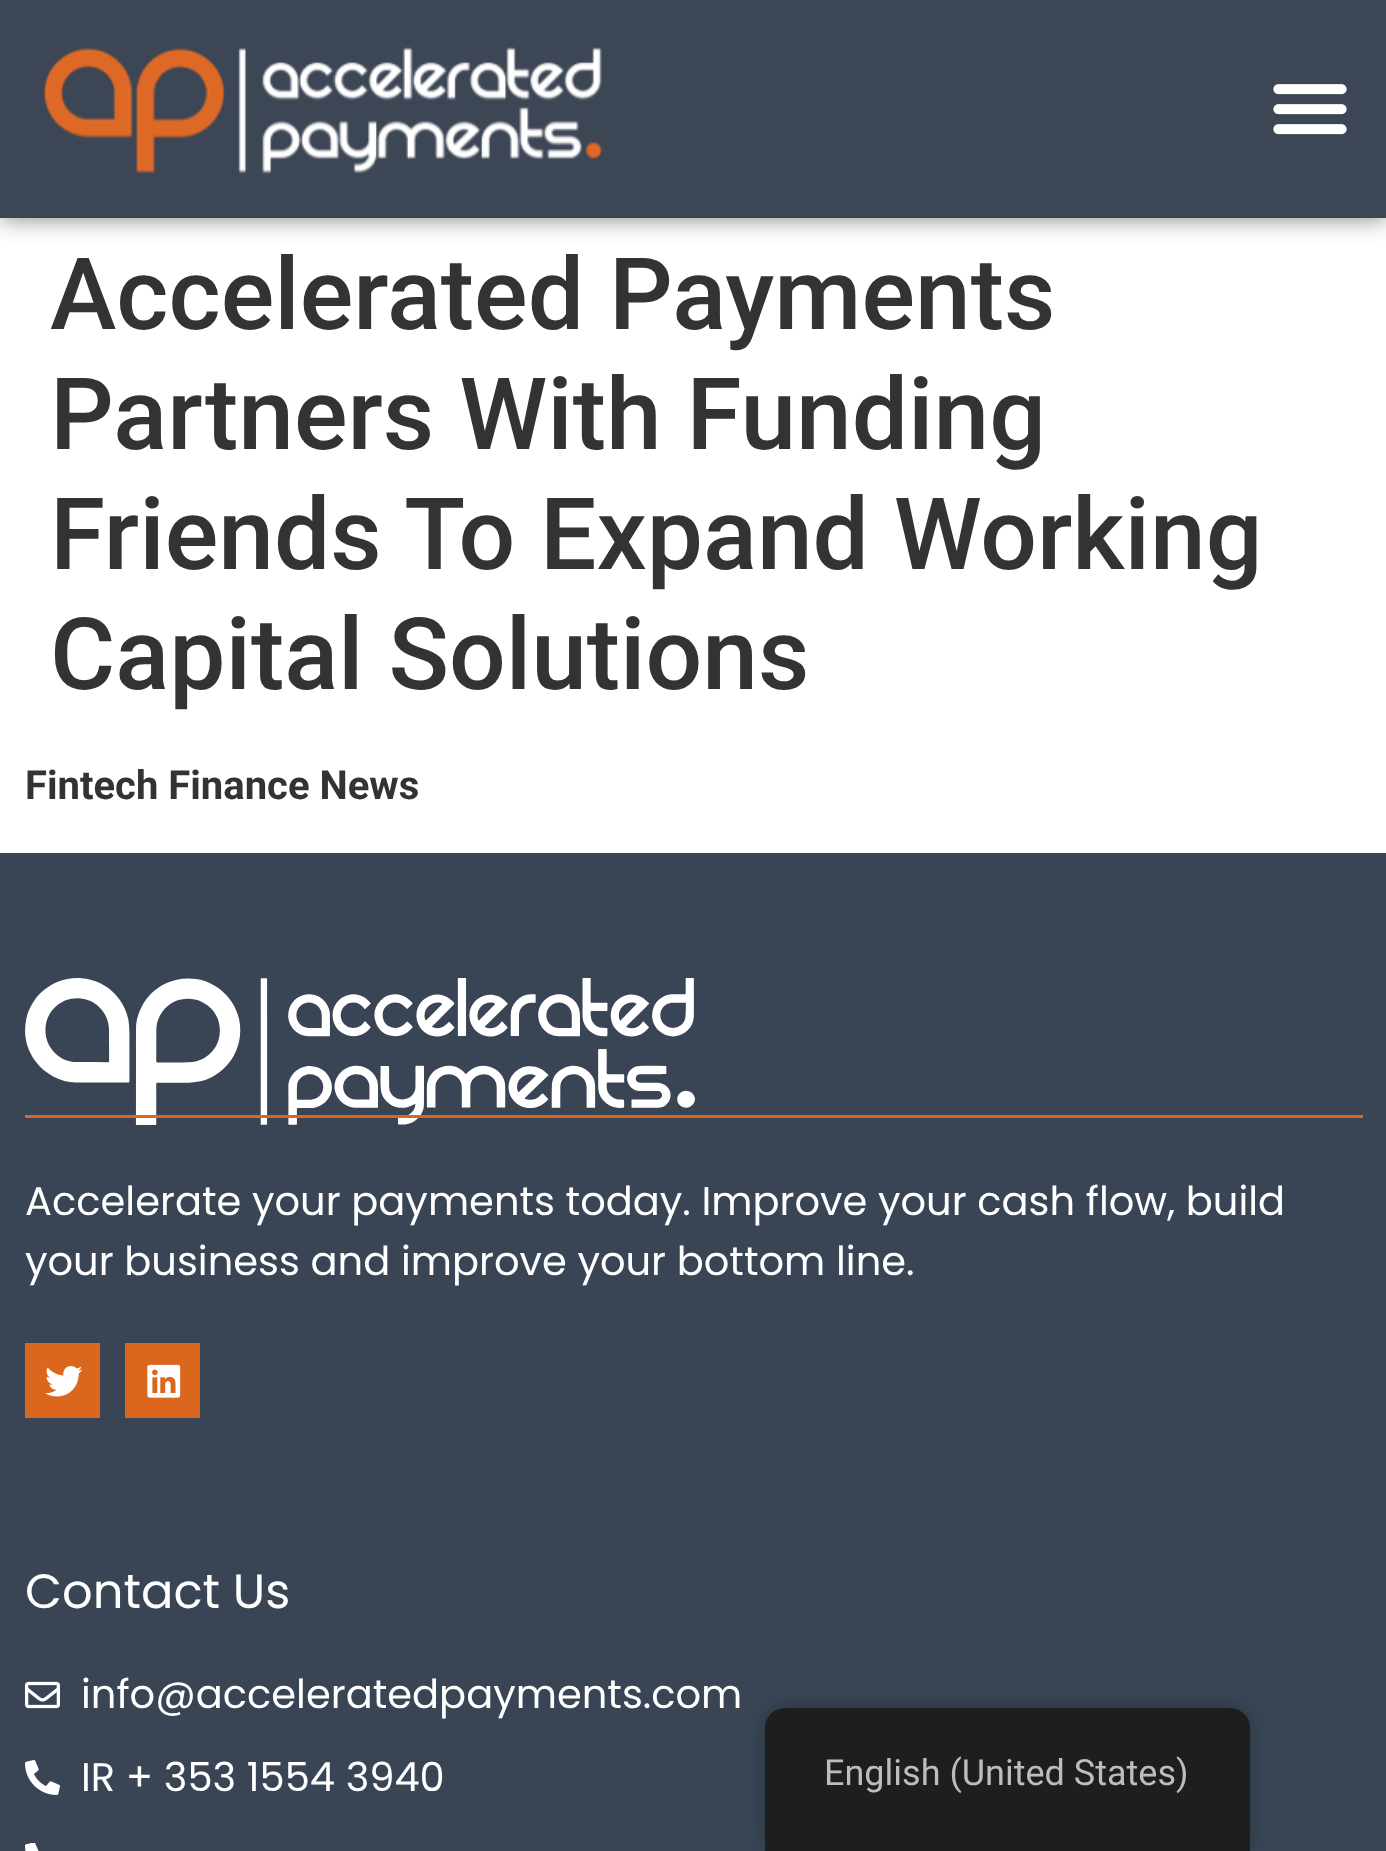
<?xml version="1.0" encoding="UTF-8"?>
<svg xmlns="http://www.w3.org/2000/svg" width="1386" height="1851">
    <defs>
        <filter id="blur1" x="-50%" y="-200%" width="200%" height="500%"><feGaussianBlur stdDeviation="12.5"/></filter>
        <filter id="blur2" x="-50%" y="-200%" width="200%" height="500%"><feGaussianBlur stdDeviation="10"/></filter>
    </defs>
    <rect width="100%" height="100%" fill="#FFFFFF"/>
    <rect x="0" y="0" width="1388" height="218" fill="#000000" fill-opacity="0.5" filter="url(#blur1)"/>
    <rect x="0" y="0" width="1386" height="218" fill="#3C4655"/>
    <image x="43" y="47" width="560" height="127" href="img_01.png"/>
    <image x="1273" y="84" width="74" height="51" href="img_02.png"/>
    <text font-family="Roboto" font-size="100" font-weight="500" fill="#333333">
        <tspan x="50" y="329">Accelerated Payments</tspan>
        <tspan x="50" y="449">Partners With Funding</tspan>
        <tspan x="50" y="569">Friends To Expand Working</tspan>
        <tspan x="50" y="689">Capital Solutions</tspan>
    </text>
    <text x="25" y="799" font-family="Roboto" font-size="40" font-weight="700" fill="#333333">Fintech Finance News</text>
    <rect x="0" y="853" width="1386" height="998" fill="#394555"/>
    <image x="25" y="978" width="670" height="147" href="img_03.png"/>
    <rect x="25" y="1115" width="1338" height="3" fill="#DB661E"/>
    <text font-family="Poppins" font-size="40" fill="#FFFFFF">
        <tspan x="25" y="1215">Accelerate your payments today. Improve your cash flow, build</tspan>
        <tspan x="25" y="1275">your business and improve your bottom line.</tspan>
    </text>
    <rect x="25" y="1343" width="75" height="75" fill="#DB661E"/>
    <image x="45" y="1366" width="38" height="31" href="img_04.png"/>
    <rect x="125" y="1343" width="75" height="75" fill="#DB661E"/>
    <image x="147" y="1364" width="34" height="34" href="img_05.png"/>
    <text x="25" y="1608" font-family="Poppins" font-size="48" fill="#FFFFFF">Contact Us</text>
    <image x="25" y="1681" width="35" height="28" href="img_06.png"/>
    <text x="81" y="1708" font-family="Poppins" font-size="40" fill="#FFFFFF">info@acceleratedpayments.com</text>
    <image x="25" y="1760" width="35" height="35" href="img_07.png"/>
    <text x="81" y="1791" font-family="Poppins" font-size="40" fill="#FFFFFF">IR + 353 1554 3940</text>
    <image x="25" y="1843" width="14" height="8" href="img_08.png"/>
    <rect x="765" y="1708" width="485" height="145" rx="20" fill="#000000" fill-opacity="0.25" filter="url(#blur2)"/>
    <path d="M 785 1708 H 1230 C 1241 1708 1250 1717 1250 1728 V 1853 H 765 V 1728 C 765 1717 774 1708 785 1708 Z" fill="#1E1E1E"/>
    <text x="824" y="1785" font-family="Roboto" font-size="36" fill="#BDBDBD">English (United States)</text>
</svg>
